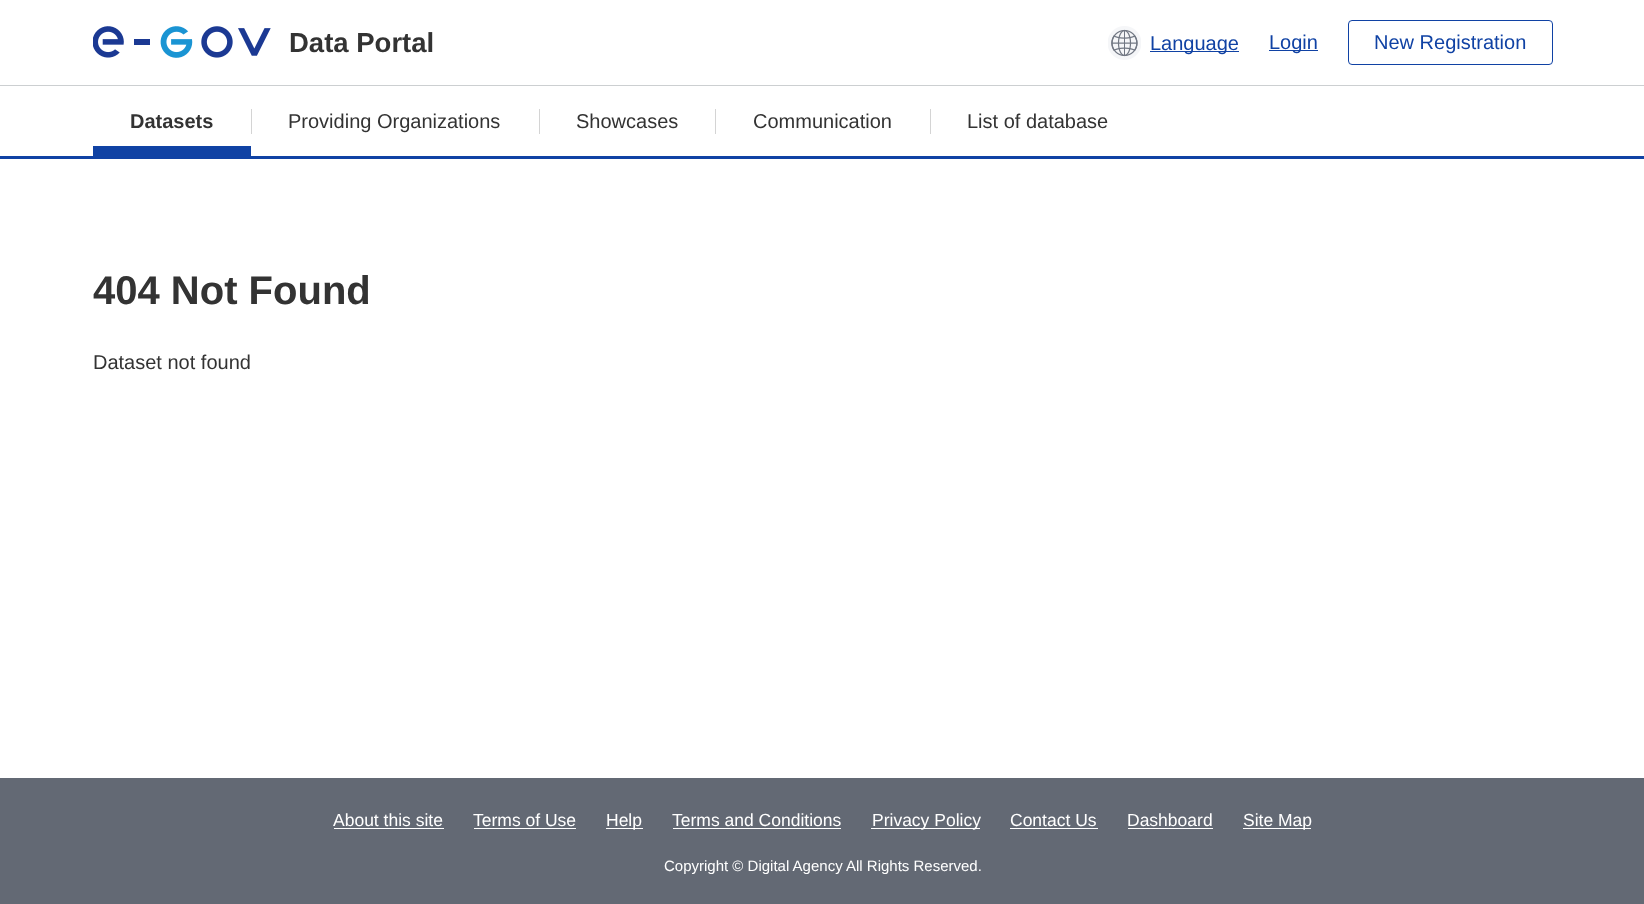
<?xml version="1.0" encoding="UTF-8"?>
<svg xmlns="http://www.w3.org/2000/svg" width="1644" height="904">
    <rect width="100%" height="100%" fill="#FFFFFF"/>
    <rect x="0" y="85" width="1644" height="1" fill="#CCCFD1"/>
    <image x="93" y="26" width="178" height="32" href="img_01.png"/>
    <text x="289" y="52" font-family="Liberation Sans" font-size="27.5" font-weight="700" fill="#333333">Data Portal</text>
    <image x="1108" y="26" width="33" height="34" href="img_02.png"/>
    <rect x="1150" y="51" width="89" height="1" fill="#1042A4"/>
    <text x="1150" y="50" font-family="Liberation Sans" font-size="20" fill="#1042A4">Language</text>
    <rect x="1269" y="50" width="49" height="1" fill="#1042A4"/>
    <text x="1269" y="49" font-family="Liberation Sans" font-size="20" fill="#1042A4">Login</text>
    <rect x="1348.5" y="20.5" width="204" height="44" rx="3.5" fill="none" stroke="#1042A4"/>
    <text x="1374" y="49" font-family="Liberation Sans" font-size="20" fill="#1042A4">New Registration</text>
    <rect x="0" y="156" width="1644" height="3" fill="#1042A4"/>
    <text x="130" y="128" font-family="Liberation Sans" font-size="20" font-weight="700" fill="#333333">Datasets</text>
    <rect x="93" y="146" width="158" height="10" fill="#1042A4"/>
    <rect x="251" y="109" width="1" height="25" fill="#D4D4D4"/>
    <text x="288" y="128" font-family="Liberation Sans" font-size="20" fill="#333333">Providing Organizations</text>
    <rect x="539" y="109" width="1" height="25" fill="#D4D4D4"/>
    <text x="576" y="128" font-family="Liberation Sans" font-size="20" fill="#333333">Showcases</text>
    <rect x="715" y="109" width="1" height="25" fill="#D4D4D4"/>
    <text x="753" y="128" font-family="Liberation Sans" font-size="20" fill="#333333">Communication</text>
    <rect x="930" y="109" width="1" height="25" fill="#D4D4D4"/>
    <text x="967" y="128" font-family="Liberation Sans" font-size="20" fill="#333333">List of database</text>
    <text x="93" y="304" font-family="Liberation Sans" font-size="40" font-weight="700" fill="#333333">404 Not Found</text>
    <text x="93" y="369" font-family="Liberation Sans" font-size="20" fill="#333333">Dataset not found</text>
    <rect x="0" y="778" width="1644" height="126" fill="#636974"/>
    <text x="333" y="826" font-family="Liberation Sans" font-size="17.5" fill="#FFFFFF">About this site</text>
    <rect x="334" y="828" width="110" height="1" fill="#FFFFFF"/>
    <text x="473" y="826" font-family="Liberation Sans" font-size="17.5" fill="#FFFFFF">Terms of Use</text>
    <rect x="474" y="828" width="102" height="1" fill="#FFFFFF"/>
    <rect x="606" y="828" width="37" height="1" fill="#FFFFFF"/>
    <text x="606" y="826" font-family="Liberation Sans" font-size="17.5" fill="#FFFFFF">Help</text>
    <text x="672" y="826" font-family="Liberation Sans" font-size="17.5" fill="#FFFFFF">Terms and Conditions</text>
    <rect x="673" y="828" width="168" height="1" fill="#FFFFFF"/>
    <rect x="871" y="828" width="109" height="1" fill="#FFFFFF"/>
    <text x="872" y="826" font-family="Liberation Sans" font-size="17.5" fill="#FFFFFF">Privacy Policy</text>
    <text x="1010" y="826" font-family="Liberation Sans" font-size="17.5" fill="#FFFFFF">Contact Us</text>
    <rect x="1010" y="828" width="88" height="1" fill="#FFFFFF"/>
    <text x="1127" y="826" font-family="Liberation Sans" font-size="17.5" fill="#FFFFFF">Dashboard</text>
    <rect x="1128" y="828" width="85" height="1" fill="#FFFFFF"/>
    <rect x="1243" y="828" width="68" height="1" fill="#FFFFFF"/>
    <text x="1243" y="826" font-family="Liberation Sans" font-size="17.5" fill="#FFFFFF">Site Map</text>
    <text x="664" y="871" font-family="Liberation Sans" font-size="15" fill="#FFFFFF">Copyright © Digital Agency All Rights Reserved.</text>
</svg>
